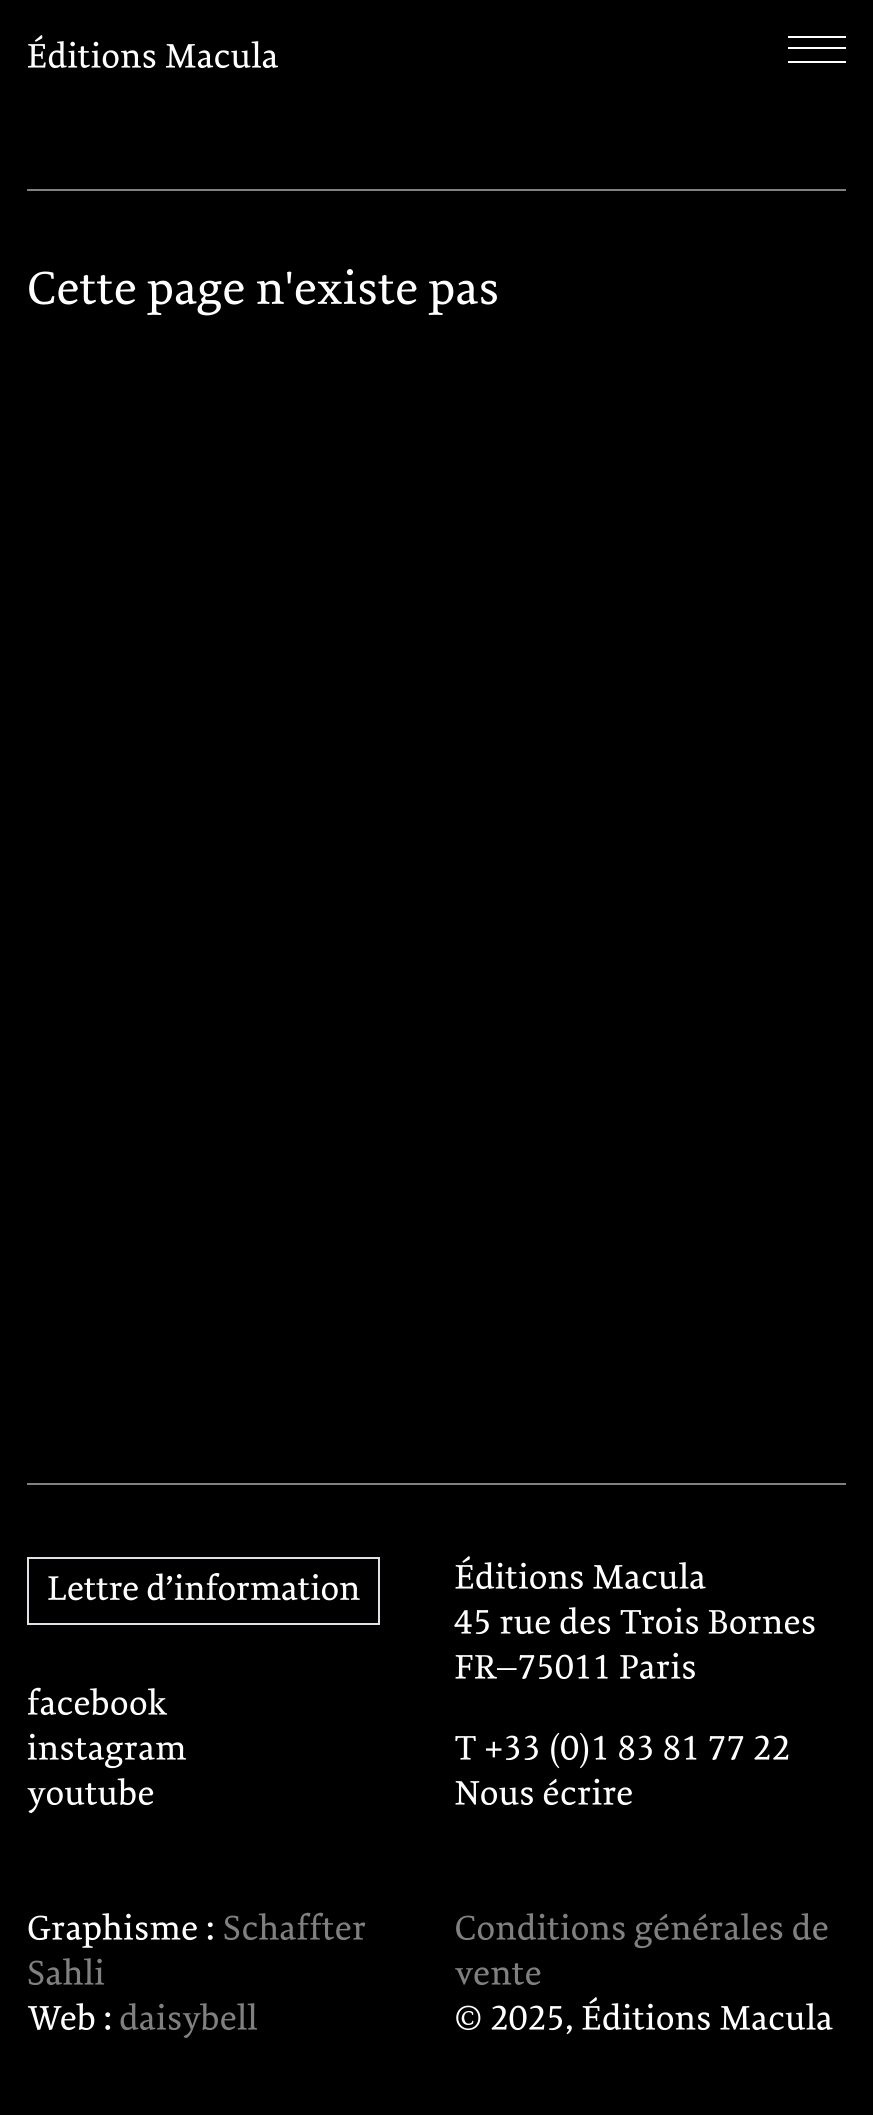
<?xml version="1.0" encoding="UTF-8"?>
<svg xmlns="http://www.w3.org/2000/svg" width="873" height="2115">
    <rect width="100%" height="100%" fill="#000000"/>
    <image x="28" y="35" width="251" height="34" href="img_01.png"/>
    <rect x="788" y="36" width="58" height="2" fill="#FFFFFF"/>
    <rect x="788" y="47" width="58" height="2" fill="#FFFFFF"/>
    <rect x="788" y="61" width="58" height="2" fill="#FFFFFF"/>
    <rect x="27" y="189" width="819" height="2" fill="#808080"/>
    <image x="29" y="269" width="468" height="47" href="img_02.png"/>
    <rect x="27" y="1483" width="819" height="2" fill="#808080"/>
    <rect x="28" y="1558" width="351" height="66" fill="none" stroke="#DEE2E6" stroke-width="2"/>
    <image x="48" y="1573" width="312" height="28" href="img_03.png"/>
    <image x="27" y="1687" width="141" height="29" href="img_04.png"/>
    <image x="27" y="1733" width="159" height="36" href="img_05.png"/>
    <image x="27" y="1778" width="127" height="36" href="img_06.png"/>
    <image x="455" y="1556" width="251" height="34" href="img_07.png"/>
    <image x="454" y="1607" width="361" height="28" href="img_08.png"/>
    <image x="455" y="1652" width="240" height="28" href="img_09.png"/>
    <image x="455" y="1732" width="334" height="37" href="img_10.png"/>
    <image x="455" y="1778" width="177" height="28" href="img_11.png"/>
    <image x="28" y="1913" width="185" height="35" href="img_12.png"/>
    <image x="224" y="1912" width="142" height="29" href="img_13.png"/>
    <image x="28" y="1958" width="77" height="28" href="img_14.png"/>
    <image x="27" y="2003" width="84" height="28" href="img_15.png"/>
    <image x="120" y="2003" width="138" height="36" href="img_16.png"/>
    <image x="456" y="1913" width="372" height="36" href="img_17.png"/>
    <image x="455" y="1963" width="86" height="23" href="img_18.png"/>
    <image x="456" y="1997" width="377" height="38" href="img_19.png"/>
</svg>
